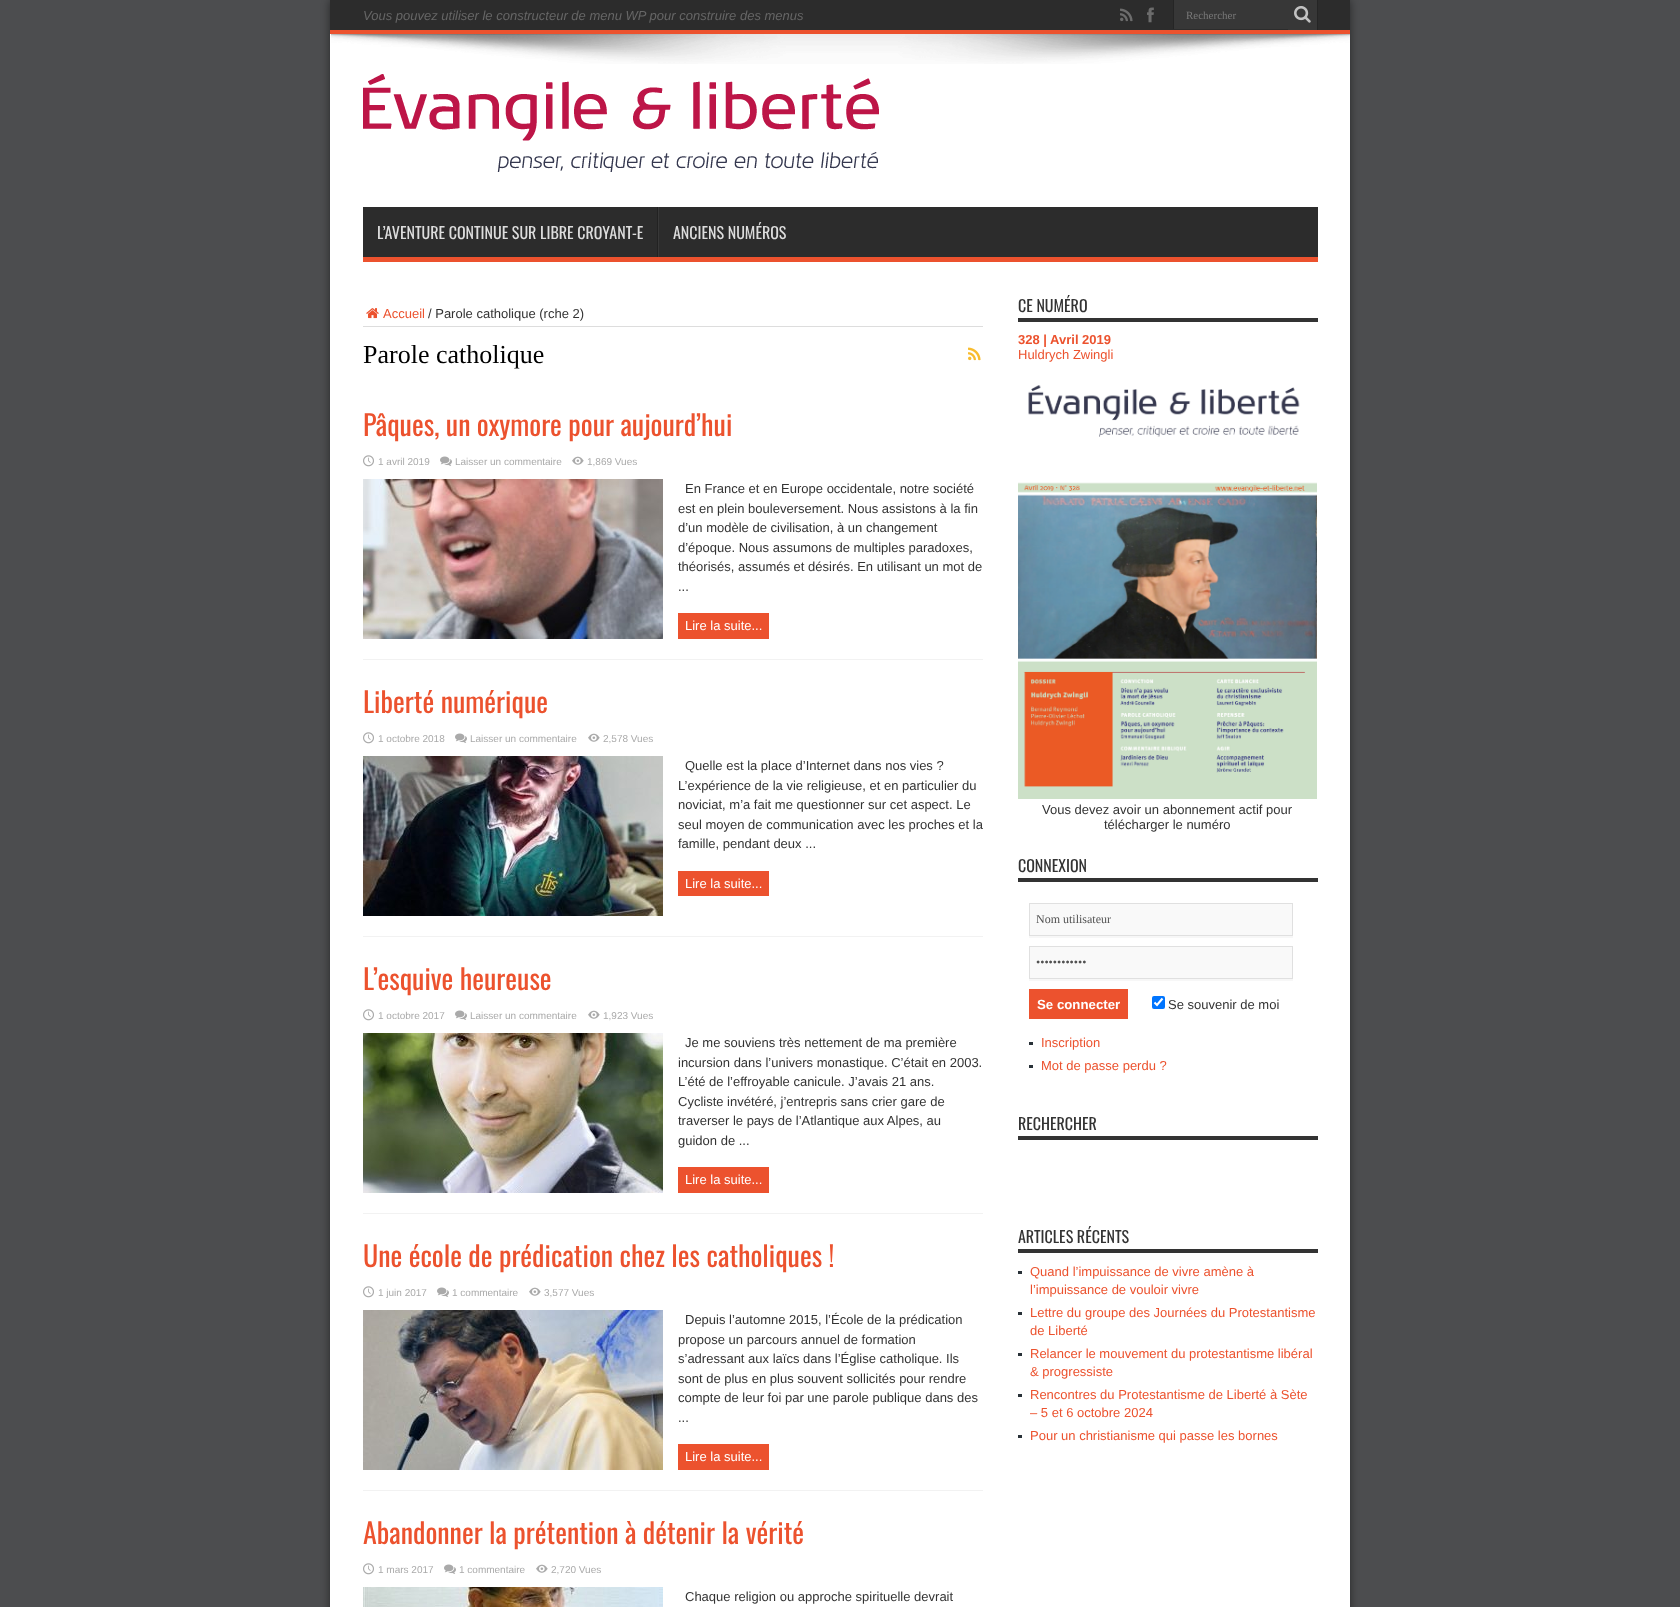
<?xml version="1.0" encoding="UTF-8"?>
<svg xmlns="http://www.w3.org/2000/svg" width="1680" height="1607">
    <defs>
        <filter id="blur1" x="-50%" y="-200%" width="200%" height="500%"><feGaussianBlur stdDeviation="5"/></filter>
    </defs>
    <rect width="100%" height="100%" fill="#4C4D4F"/>
    <rect x="330" y="0" width="1020" height="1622" fill="#000000" fill-opacity="0.5" filter="url(#blur1)"/>
    <rect x="330" y="34" width="1020" height="1573" fill="#FFFFFF"/>
    <rect x="330" y="0" width="1020" height="30" fill="#2C2C2C"/>
    <rect x="330" y="30" width="1020" height="4" fill="#EC522E"/>
    <text x="363" y="20" font-family="Liberation Sans" font-size="13" font-style="italic" fill="#666666">Vous pouvez utiliser le constructeur de menu WP pour construire des menus</text>
    <image x="1120" y="8" width="13" height="14" href="img_01.png"/>
    <image x="1147" y="7" width="7" height="16" href="img_02.png"/>
    <rect x="1174" y="0" width="114" height="29" fill="#373737"/>
    <rect x="1173" y="0" width="1" height="29" fill="#252525"/>
    <text x="1186" y="19" font-family="Liberation Serif" font-size="11" fill="#787878">Rechercher</text>
    <rect x="1288" y="0" width="29" height="30" fill="#373737"/>
    <rect x="1317" y="0" width="1" height="30" fill="#252525"/>
    <image x="1294" y="6" width="17" height="17" href="img_03.png"/>
    <image x="331" y="34" width="1019" height="30" href="img_04.png"/>
    <image x="363" y="74" width="516" height="98" href="img_05.png"/>
    <rect x="363" y="207" width="955" height="50" fill="#2C2C2C"/>
    <rect x="363" y="257" width="955" height="5" fill="#EC522E"/>
    <text x="377" y="239" font-family="Oswald" font-size="16" fill="#DDDDDD">L’AVENTURE CONTINUE SUR LIBRE CROYANT-E</text>
    <rect x="657" y="207" width="1" height="50" fill="#222222"/>
    <rect x="658" y="207" width="1" height="50" fill="#383838"/>
    <text x="673" y="239" font-family="Oswald" font-size="16" fill="#DDDDDD">ANCIENS NUMÉROS</text>
    <rect x="363" y="326" width="620" height="1" fill="#DDDDDD"/>
    <image x="366" y="308" width="13" height="11" href="img_06.png"/>
    <text x="383" y="318" font-family="Liberation Sans" font-size="13" fill="#EC522E">Accueil</text>
    <text x="428" y="318" font-family="Liberation Sans" font-size="13" fill="#333333">/ Parole catholique (rche 2)</text>
    <text x="363" y="363" font-family="Liberation Serif" font-size="26" fill="#000000">Parole catholique</text>
    <image x="968" y="347" width="13" height="14" href="img_07.png"/>
    <rect x="363" y="659" width="620" height="1" fill="#F2F2F2"/>
    <text x="363" y="436" font-family="Oswald" font-size="28" fill="#EC522E">Pâques, un oxymore pour aujourd’hui</text>
    <image x="363" y="455" width="11" height="12" href="img_08.png"/>
    <text x="378" y="465" font-family="Liberation Sans" font-size="10" fill="#AAAAAA">1 avril 2019</text>
    <image x="440" y="456" width="12" height="10" href="img_09.png"/>
    <text x="455" y="465" font-family="Liberation Sans" font-size="10" fill="#AAAAAA">Laisser un commentaire</text>
    <image x="572" y="456" width="12" height="9" href="img_10.png"/>
    <text x="587" y="465" font-family="Liberation Sans" font-size="10" fill="#AAAAAA">1,869 Vues</text>
    <image x="363" y="479" width="300" height="160" href="img_11.png"/>
    <text x="685" y="493" font-family="Liberation Sans" font-size="13" fill="#333333">En France et en Europe occidentale, notre société</text>
    <text font-family="Liberation Sans" font-size="13" fill="#333333">
        <tspan x="678" y="513">est en plein bouleversement. Nous assistons à la fin</tspan>
        <tspan x="678" y="532">d’un modèle de civilisation, à un changement</tspan>
        <tspan x="678" y="552">d’époque. Nous assumons de multiples paradoxes,</tspan>
        <tspan x="678" y="571">théorisés, assumés et désirés. En utilisant un mot de</tspan>
        <tspan x="678" y="591">...</tspan>
    </text>
    <rect x="678" y="613" width="91" height="26" fill="#EC522E"/>
    <text x="685" y="630" font-family="Liberation Sans" font-size="13" fill="#FFFFFF">Lire la suite...</text>
    <rect x="363" y="936" width="620" height="1" fill="#F2F2F2"/>
    <text x="363" y="713" font-family="Oswald" font-size="28" fill="#EC522E">Liberté numérique</text>
    <image x="363" y="732" width="11" height="12" href="img_08.png"/>
    <text x="378" y="742" font-family="Liberation Sans" font-size="10" fill="#AAAAAA">1 octobre 2018</text>
    <image x="455" y="733" width="12" height="10" href="img_09.png"/>
    <text x="470" y="742" font-family="Liberation Sans" font-size="10" fill="#AAAAAA">Laisser un commentaire</text>
    <image x="588" y="733" width="12" height="9" href="img_10.png"/>
    <text x="603" y="742" font-family="Liberation Sans" font-size="10" fill="#AAAAAA">2,578 Vues</text>
    <image x="363" y="756" width="300" height="160" href="img_12.png"/>
    <text x="685" y="770" font-family="Liberation Sans" font-size="13" fill="#333333">Quelle est la place d’Internet dans nos vies ?</text>
    <text font-family="Liberation Sans" font-size="13" fill="#333333">
        <tspan x="678" y="790">L’expérience de la vie religieuse, et en particulier du</tspan>
        <tspan x="678" y="809">noviciat, m’a fait me questionner sur cet aspect. Le</tspan>
        <tspan x="678" y="829">seul moyen de communication avec les proches et la</tspan>
        <tspan x="678" y="848">famille, pendant deux ...</tspan>
    </text>
    <rect x="678" y="871" width="91" height="25" fill="#EC522E"/>
    <text x="685" y="888" font-family="Liberation Sans" font-size="13" fill="#FFFFFF">Lire la suite...</text>
    <rect x="363" y="1213" width="620" height="1" fill="#F2F2F2"/>
    <text x="363" y="990" font-family="Oswald" font-size="28" fill="#EC522E">L’esquive heureuse</text>
    <image x="363" y="1009" width="11" height="12" href="img_08.png"/>
    <text x="378" y="1019" font-family="Liberation Sans" font-size="10" fill="#AAAAAA">1 octobre 2017</text>
    <image x="455" y="1010" width="12" height="10" href="img_09.png"/>
    <text x="470" y="1019" font-family="Liberation Sans" font-size="10" fill="#AAAAAA">Laisser un commentaire</text>
    <image x="588" y="1010" width="12" height="9" href="img_10.png"/>
    <text x="603" y="1019" font-family="Liberation Sans" font-size="10" fill="#AAAAAA">1,923 Vues</text>
    <image x="363" y="1033" width="300" height="160" href="img_13.png"/>
    <text x="685" y="1047" font-family="Liberation Sans" font-size="13" fill="#333333">Je me souviens très nettement de ma première</text>
    <text font-family="Liberation Sans" font-size="13" fill="#333333">
        <tspan x="678" y="1067">incursion dans l’univers monastique. C’était en 2003.</tspan>
        <tspan x="678" y="1086">L’été de l’effroyable canicule. J’avais 21 ans.</tspan>
        <tspan x="678" y="1106">Cycliste invétéré, j’entrepris sans crier gare de</tspan>
        <tspan x="678" y="1125">traverser le pays de l’Atlantique aux Alpes, au</tspan>
        <tspan x="678" y="1145">guidon de ...</tspan>
    </text>
    <rect x="678" y="1167" width="91" height="26" fill="#EC522E"/>
    <text x="685" y="1184" font-family="Liberation Sans" font-size="13" fill="#FFFFFF">Lire la suite...</text>
    <rect x="363" y="1490" width="620" height="1" fill="#F2F2F2"/>
    <text x="363" y="1267" font-family="Oswald" font-size="28" fill="#EC522E">Une école de prédication chez les catholiques !</text>
    <image x="363" y="1286" width="11" height="12" href="img_08.png"/>
    <text x="378" y="1296" font-family="Liberation Sans" font-size="10" fill="#AAAAAA">1 juin 2017</text>
    <image x="437" y="1287" width="12" height="10" href="img_09.png"/>
    <text x="452" y="1296" font-family="Liberation Sans" font-size="10" fill="#AAAAAA">1 commentaire</text>
    <image x="529" y="1287" width="12" height="9" href="img_10.png"/>
    <text x="544" y="1296" font-family="Liberation Sans" font-size="10" fill="#AAAAAA">3,577 Vues</text>
    <image x="363" y="1310" width="300" height="160" href="img_14.png"/>
    <text x="685" y="1324" font-family="Liberation Sans" font-size="13" fill="#333333">Depuis l’automne 2015, l’École de la prédication</text>
    <text font-family="Liberation Sans" font-size="13" fill="#333333">
        <tspan x="678" y="1344">propose un parcours annuel de formation</tspan>
        <tspan x="678" y="1363">s’adressant aux laïcs dans l’Église catholique. Ils</tspan>
        <tspan x="678" y="1383">sont de plus en plus souvent sollicités pour rendre</tspan>
        <tspan x="678" y="1402">compte de leur foi par une parole publique dans des</tspan>
        <tspan x="678" y="1422">...</tspan>
    </text>
    <rect x="678" y="1444" width="91" height="26" fill="#EC522E"/>
    <text x="685" y="1461" font-family="Liberation Sans" font-size="13" fill="#FFFFFF">Lire la suite...</text>
    <text x="363" y="1544" font-family="Oswald" font-size="28" fill="#EC522E">Abandonner la prétention à détenir la vérité</text>
    <image x="363" y="1563" width="11" height="12" href="img_08.png"/>
    <text x="378" y="1573" font-family="Liberation Sans" font-size="10" fill="#AAAAAA">1 mars 2017</text>
    <image x="444" y="1564" width="12" height="10" href="img_09.png"/>
    <text x="459" y="1573" font-family="Liberation Sans" font-size="10" fill="#AAAAAA">1 commentaire</text>
    <image x="536" y="1564" width="12" height="9" href="img_10.png"/>
    <text x="551" y="1573" font-family="Liberation Sans" font-size="10" fill="#AAAAAA">2,720 Vues</text>
    <image x="363" y="1587" width="300" height="20" href="img_15.png"/>
    <text x="685" y="1601" font-family="Liberation Sans" font-size="13" fill="#333333">Chaque religion ou approche spirituelle devrait</text>
    <rect x="1018" y="318" width="300" height="4" fill="#333333"/>
    <text x="1018" y="312" font-family="Oswald" font-size="16" fill="#333333">CE NUMÉRO</text>
    <text x="1018" y="344" font-family="Liberation Sans" font-size="13" font-weight="700" fill="#EC522E">328 | Avril 2019</text>
    <text x="1018" y="359" font-family="Liberation Sans" font-size="13" fill="#EC522E">Huldrych Zwingli</text>
    <image x="1018" y="385" width="299" height="414" href="img_16.png"/>
    <text x="1042" y="814" font-family="Liberation Sans" font-size="13" fill="#333333">Vous devez avoir un abonnement actif pour</text>
    <text x="1104" y="829" font-family="Liberation Sans" font-size="13" fill="#333333">télécharger le numéro</text>
    <rect x="1018" y="878" width="300" height="4" fill="#333333"/>
    <text x="1018" y="872" font-family="Oswald" font-size="16" fill="#333333">CONNEXION</text>
    <rect x="1029" y="936" width="264" height="2" fill="#F7F7F7"/>
    <rect x="1029.5" y="903.5" width="263" height="32" fill="#F9F9F9" stroke="#E0E0E0"/>
    <text x="1036" y="923" font-family="Liberation Serif" font-size="12" fill="#515151">Nom utilisateur</text>
    <rect x="1029" y="979" width="264" height="2" fill="#F7F7F7"/>
    <rect x="1029.5" y="946.5" width="263" height="32" fill="#F9F9F9" stroke="#E0E0E0"/>
    <text x="1036" y="966" font-family="Liberation Serif" font-size="12" fill="#515151">••••••••••••</text>
    <rect x="1029" y="989" width="99" height="30" fill="#EC522E"/>
    <text x="1037" y="1009" font-family="Liberation Sans" font-size="13.25" font-weight="700" fill="#FFFFFF">Se connecter</text>
    <rect x="1152" y="996" width="13" height="13" rx="2" fill="#0075FF"/>
    <path d="M 1154.5 1002.5 L 1157 1005 L 1162.5 998.5" fill="none" stroke="#FFFFFF" stroke-width="2.1"/>
    <text x="1168" y="1009" font-family="Liberation Sans" font-size="13" fill="#333333">Se souvenir de moi</text>
    <rect x="1029" y="1042" width="4" height="3" fill="#293138"/>
    <text x="1041" y="1047" font-family="Liberation Sans" font-size="13" fill="#EC522E">Inscription</text>
    <rect x="1029" y="1065" width="4" height="3" fill="#293138"/>
    <text x="1041" y="1070" font-family="Liberation Sans" font-size="13" fill="#EC522E">Mot de passe perdu ?</text>
    <rect x="1018" y="1136" width="300" height="4" fill="#333333"/>
    <text x="1018" y="1130" font-family="Oswald" font-size="16" fill="#333333">RECHERCHER</text>
    <rect x="1018" y="1249" width="300" height="4" fill="#333333"/>
    <text x="1018" y="1243" font-family="Oswald" font-size="16" fill="#333333">ARTICLES RÉCENTS</text>
    <rect x="1018" y="1271" width="4" height="3" fill="#293138"/>
    <text font-family="Liberation Sans" font-size="13" fill="#EC522E">
        <tspan x="1030" y="1276">Quand l’impuissance de vivre amène à</tspan>
        <tspan x="1030" y="1294">l’impuissance de vouloir vivre</tspan>
    </text>
    <rect x="1018" y="1312" width="4" height="3" fill="#293138"/>
    <text font-family="Liberation Sans" font-size="13" fill="#EC522E">
        <tspan x="1030" y="1317">Lettre du groupe des Journées du Protestantisme</tspan>
        <tspan x="1030" y="1335">de Liberté</tspan>
    </text>
    <rect x="1018" y="1353" width="4" height="3" fill="#293138"/>
    <text font-family="Liberation Sans" font-size="13" fill="#EC522E">
        <tspan x="1030" y="1358">Relancer le mouvement du protestantisme libéral</tspan>
        <tspan x="1030" y="1376">&amp; progressiste</tspan>
    </text>
    <rect x="1018" y="1394" width="4" height="3" fill="#293138"/>
    <text font-family="Liberation Sans" font-size="13" fill="#EC522E">
        <tspan x="1030" y="1399">Rencontres du Protestantisme de Liberté à Sète</tspan>
        <tspan x="1030" y="1417">– 5 et 6 octobre 2024</tspan>
    </text>
    <rect x="1018" y="1435" width="4" height="3" fill="#293138"/>
    <text x="1030" y="1440" font-family="Liberation Sans" font-size="13" fill="#EC522E">Pour un christianisme qui passe les bornes</text>
</svg>
